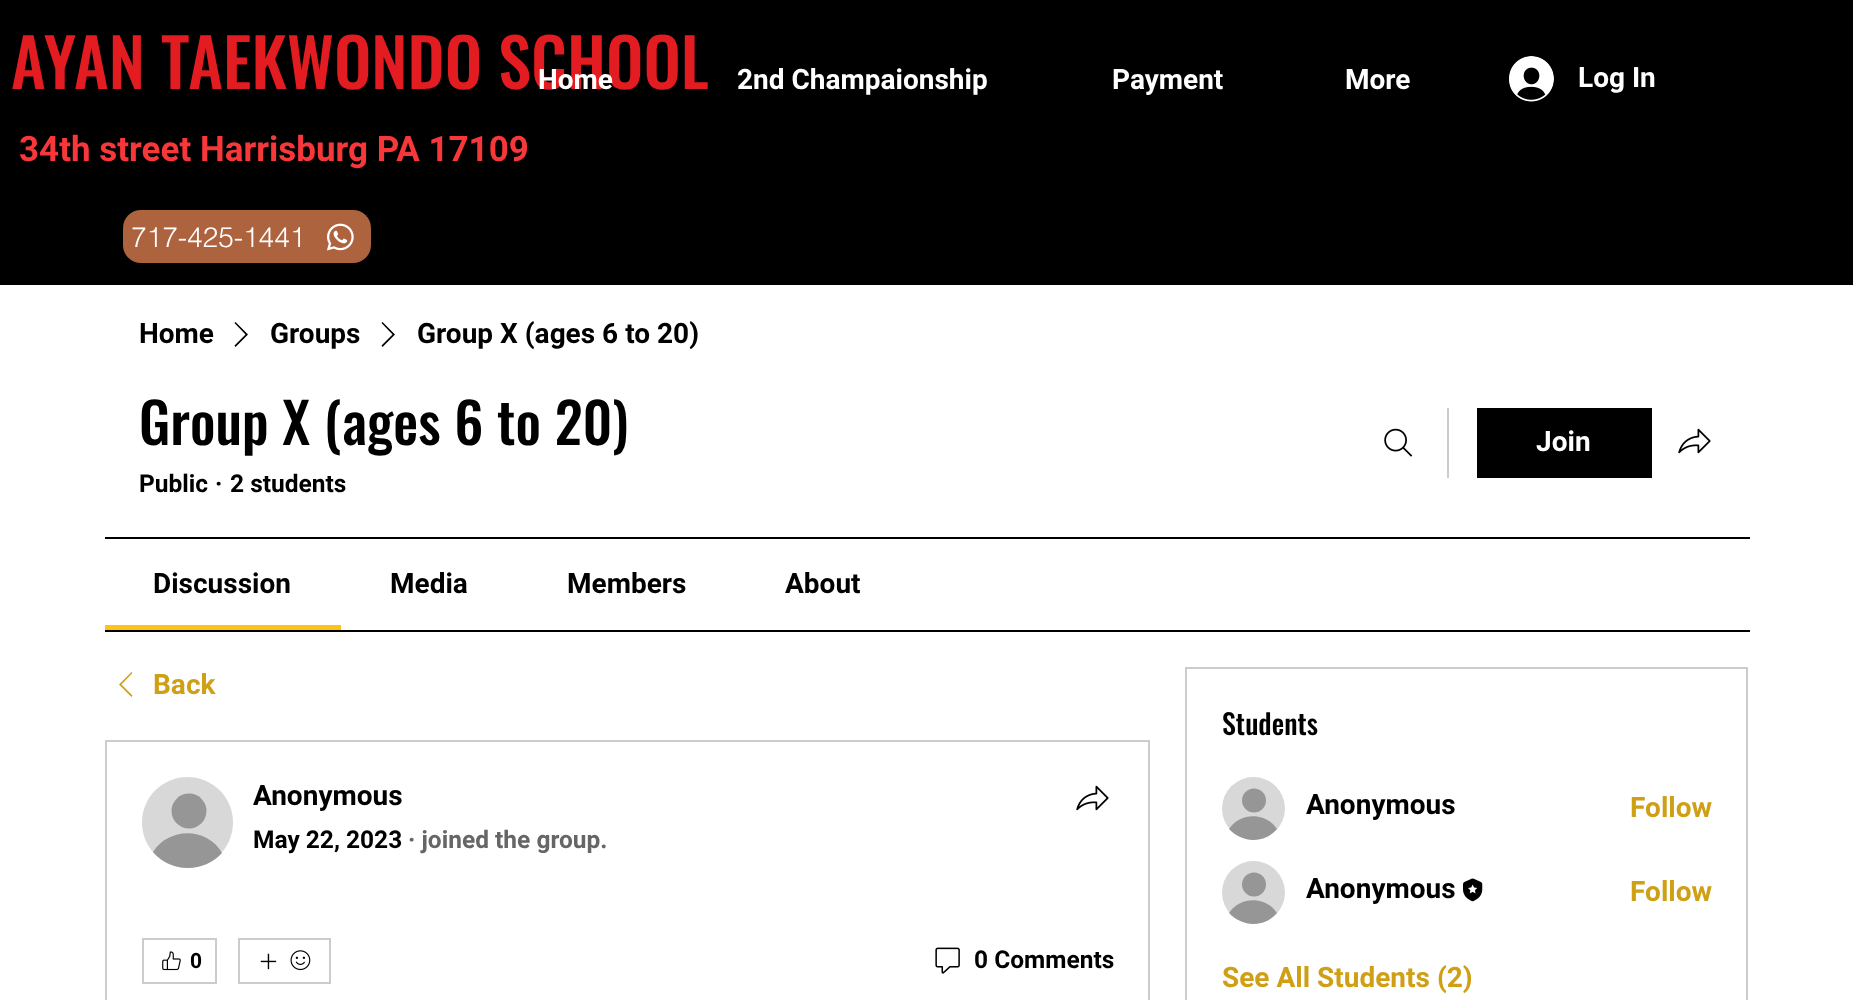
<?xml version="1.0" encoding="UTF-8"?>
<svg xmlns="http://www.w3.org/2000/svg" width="1853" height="1000">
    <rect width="100%" height="100%" fill="#FFFFFF"/>
    <rect x="0" y="0" width="1853" height="285" fill="#000000"/>
    <text x="11" y="89" font-family="Oswald" font-size="66.5" font-weight="500" fill="#E21C21">AYAN TAEKWONDO SCHOOL</text>
    <text x="19" y="161" font-family="Roboto" font-size="35" font-weight="700" fill="#F7373A">34th street Harrisburg PA 17109</text>
    <rect x="123" y="210" width="248" height="53" rx="18" fill="#AE633F"/>
    <text x="131" y="247" font-family="helvetica" font-size="28" font-weight="300" fill="#FFFFFF">717-425-1441</text>
    <image x="327" y="223" width="27" height="28" href="img_01.png"/>
    <text x="538" y="89" font-family="Roboto" font-size="28" font-weight="700" fill="#FFFFFF">Home</text>
    <text x="737" y="89" font-family="Roboto" font-size="28" font-weight="700" fill="#FFFFFF">2nd Champaionship</text>
    <text x="1112" y="89" font-family="Roboto" font-size="28" font-weight="700" fill="#FFFFFF">Payment</text>
    <text x="1345" y="89" font-family="Roboto" font-size="28" font-weight="700" fill="#FFFFFF">More</text>
    <image x="1509" y="56" width="45" height="46" href="img_02.png"/>
    <text x="1578" y="87" font-family="Roboto" font-size="28" font-weight="700" fill="#FFFFFF">Log In</text>
    <text x="139" y="343" font-family="Roboto" font-size="28" font-weight="700" fill="#000000">Home</text>
    <path d="M 235.5 322 L 248 334.5 L 235.5 347 L 234.5 345.5 L 245.5 334.5 L 234.5 323 Z" fill="#000000" fill-rule="evenodd"/>
    <text x="270" y="343" font-family="Roboto" font-size="28" font-weight="700" fill="#000000">Groups</text>
    <path d="M 382.5 322 L 395 334.5 L 382.5 347 L 381.5 345.5 L 392.5 334.5 L 381.5 323 Z" fill="#000000" fill-rule="evenodd"/>
    <text x="417" y="343" font-family="Roboto" font-size="28" font-weight="700" fill="#000000">Group X (ages 6 to 20)</text>
    <text x="139" y="445" font-family="Oswald" font-size="56" font-weight="500" fill="#000000">Group X (ages 6 to 20)</text>
    <text x="139" y="492" font-family="Roboto" font-size="24.5" font-weight="700" fill="#000000">Public</text>
    <text x="215" y="492" font-family="Roboto" font-size="24.5" font-weight="700" fill="#000000">·</text>
    <text x="230" y="492" font-family="Roboto" font-size="24.5" font-weight="700" fill="#000000">2 students</text>
    <image x="1384" y="428" width="29" height="29" href="img_03.png"/>
    <rect x="1447" y="408" width="2" height="70" fill="#CCCCCC"/>
    <rect x="1477" y="408" width="175" height="70" fill="#000000"/>
    <text x="1536" y="451" font-family="Roboto" font-size="28" font-weight="700" fill="#FFFFFF">Join</text>
    <image x="1678" y="428" width="33" height="26" href="img_04.png"/>
    <rect x="105" y="537" width="1645" height="2" fill="#000000"/>
    <rect x="105" y="630" width="1645" height="2" fill="#000000"/>
    <rect x="105" y="625" width="236" height="5" fill="#FFC314"/>
    <text x="153" y="593" font-family="Roboto" font-size="28" font-weight="700" fill="#000000">Discussion</text>
    <text x="390" y="593" font-family="Roboto" font-size="28" font-weight="700" fill="#000000">Media</text>
    <text x="567" y="593" font-family="Roboto" font-size="28" font-weight="700" fill="#000000">Members</text>
    <text x="785" y="593" font-family="Roboto" font-size="28" font-weight="700" fill="#000000">About</text>
    <path d="M 131.5 672 L 132.5 673 L 121.5 684.5 L 132.5 695.5 L 131.5 697 L 119 684.5 Z" fill="#CF9F15" fill-rule="evenodd"/>
    <text x="153" y="694" font-family="Roboto" font-size="28" font-weight="700" fill="#CF9F15">Back</text>
    <rect x="106" y="741" width="1043" height="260" fill="none" stroke="#CCCCCC" stroke-width="2"/>
    <circle cx="187.5" cy="822.5" r="45.5" fill="#D8D8D8"/>
    <circle cx="189" cy="811" r="17.5" fill="#969696"/>
    <path d="M 222 853 C 204 873 171 873 153 852 C 169 827 207 827 222 853 Z" fill="#969696"/>
    <text x="253" y="805" font-family="Roboto" font-size="28" font-weight="700" fill="#000000">Anonymous</text>
    <text x="253" y="848" font-family="Roboto" font-size="24.5" font-weight="700" fill="#000000">May 22, 2023</text>
    <text x="408" y="848" font-family="Roboto" font-size="24.5" font-weight="700" fill="#666666">· joined the group.</text>
    <image x="1076" y="785" width="33" height="26" href="img_04.png"/>
    <rect x="143" y="939" width="73" height="44" fill="none" stroke="#CCCCCC" stroke-width="2"/>
    <image x="162" y="951" width="19" height="20" href="img_05.png"/>
    <text x="190" y="968" font-family="Roboto" font-size="21" font-weight="700" fill="#000000">0</text>
    <rect x="239" y="939" width="91" height="44" fill="none" stroke="#CCCCCC" stroke-width="2"/>
    <image x="260" y="953" width="17" height="17" href="img_06.png"/>
    <image x="290" y="950" width="21" height="21" href="img_07.png"/>
    <image x="935" y="947" width="25" height="27" href="img_08.png"/>
    <text x="974" y="968" font-family="Roboto" font-size="24.5" font-weight="700" fill="#000000">0 Comments</text>
    <rect x="1186" y="668" width="561" height="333" fill="none" stroke="#CCCCCC" stroke-width="2"/>
    <text x="1222" y="735" font-family="Oswald" font-size="28" font-weight="500" fill="#000000">Students</text>
    <circle cx="1253.5" cy="808.5" r="31.5" fill="#D8D8D8"/>
    <circle cx="1254" cy="800.5" r="12" fill="#969696"/>
    <path d="M 1277 829 C 1264 844 1242 843 1229 829 C 1240 812 1266 812 1277 829 Z" fill="#969696"/>
    <text x="1306" y="814" font-family="Roboto" font-size="28" font-weight="700" fill="#000000">Anonymous</text>
    <text x="1630" y="817" font-family="Roboto" font-size="28" font-weight="700" fill="#CF9F15">Follow</text>
    <circle cx="1253.5" cy="892.5" r="31.5" fill="#D8D8D8"/>
    <circle cx="1254" cy="884.5" r="12" fill="#969696"/>
    <path d="M 1277 913 C 1264 928 1242 927 1229 913 C 1240 896 1266 896 1277 913 Z" fill="#969696"/>
    <text x="1306" y="898" font-family="Roboto" font-size="28" font-weight="700" fill="#000000">Anonymous</text>
    <image x="1463" y="878" width="20" height="24" href="img_09.png"/>
    <text x="1630" y="901" font-family="Roboto" font-size="28" font-weight="700" fill="#CF9F15">Follow</text>
    <text x="1222" y="987" font-family="Roboto" font-size="28" font-weight="700" fill="#CF9F15">See All Students (2)</text>
</svg>
